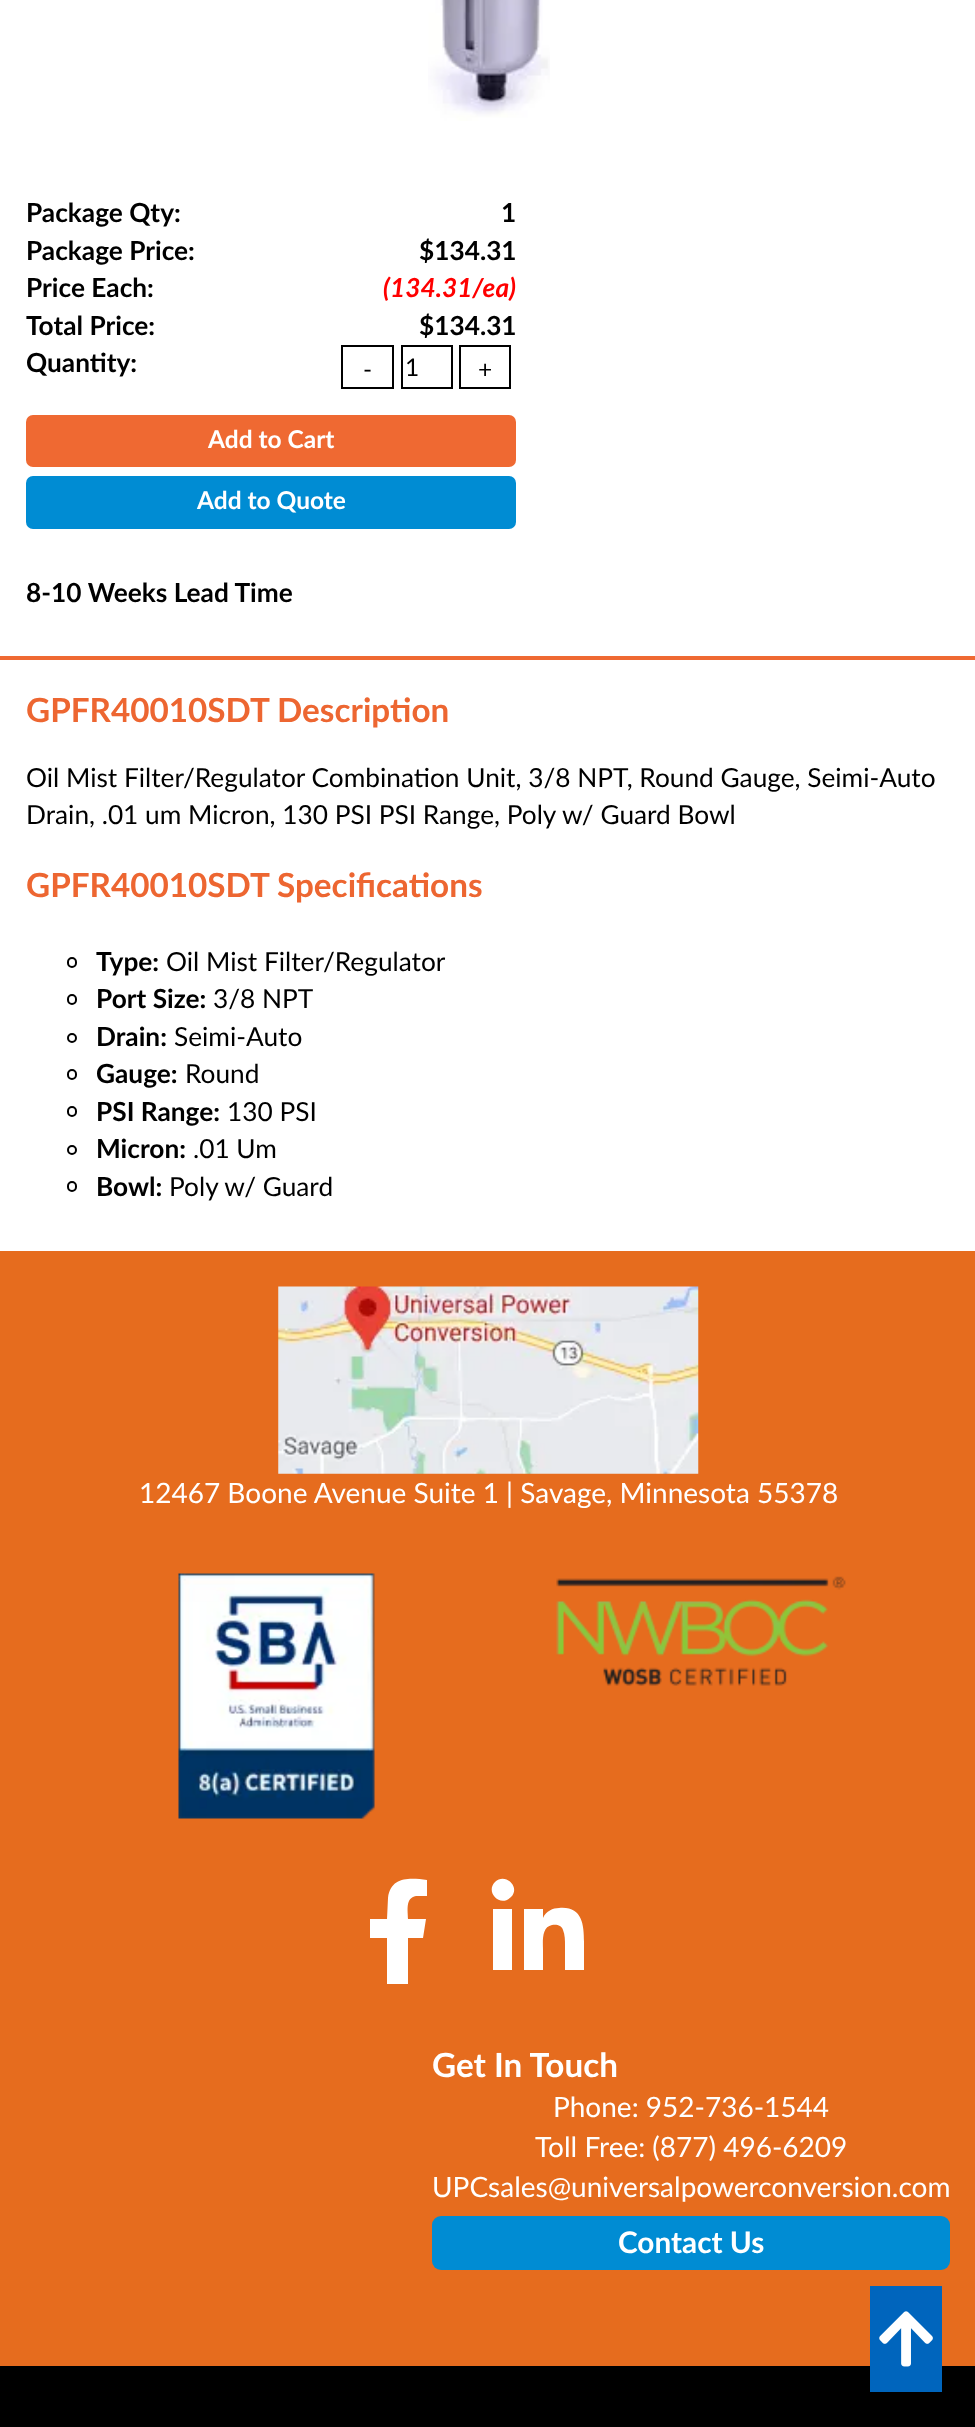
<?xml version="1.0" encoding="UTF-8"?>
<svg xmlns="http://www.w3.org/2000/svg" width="975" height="2427">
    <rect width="100%" height="100%" fill="#FFFFFF"/>
    <image x="428" y="0" width="122" height="121" href="img_01.png"/>
    <text x="26" y="222" font-family="Lato" font-size="26.25" font-weight="700" fill="#000000">Package Qty:</text>
    <text x="501" y="222" font-family="Lato" font-size="26.25" font-weight="700" fill="#000000">1</text>
    <text x="26" y="260" font-family="Lato" font-size="26.25" font-weight="700" fill="#000000">Package Price:</text>
    <text x="419" y="260" font-family="Lato" font-size="26.25" font-weight="700" fill="#000000">$134.31</text>
    <text x="26" y="297" font-family="Lato" font-size="26.25" font-weight="700" fill="#000000">Price Each:</text>
    <text x="383" y="297" font-family="Lato" font-size="26.25" font-weight="700" font-style="italic" fill="#FF0000">(134.31/ea)</text>
    <text x="26" y="335" font-family="Lato" font-size="26.25" font-weight="700" fill="#000000">Total Price:</text>
    <text x="419" y="335" font-family="Lato" font-size="26.25" font-weight="700" fill="#000000">$134.31</text>
    <text x="26" y="372" font-family="Lato" font-size="26.25" font-weight="700" fill="#000000">Quantity:</text>
    <rect x="342" y="346" width="51" height="42" fill="none" stroke="#000000" stroke-width="2"/>
    <text x="363" y="378" font-family="Lato" font-size="24.5" fill="#000000">-</text>
    <rect x="402" y="346" width="50" height="42" fill="none" stroke="#000000" stroke-width="2"/>
    <text x="405" y="376" font-family="Lato" font-size="24.5" fill="#000000">1</text>
    <rect x="460" y="346" width="50" height="42" fill="none" stroke="#000000" stroke-width="2"/>
    <text x="478" y="378" font-family="Lato" font-size="24.5" fill="#000000">+</text>
    <rect x="26" y="415" width="490" height="52" rx="7" fill="#EF6932"/>
    <text x="208" y="448" font-family="Lato" font-size="24.5" font-weight="700" fill="#FFFFFF">Add to Cart</text>
    <rect x="26" y="476" width="490" height="53" rx="7" fill="#008CD3"/>
    <text x="197" y="509" font-family="Lato" font-size="24.5" font-weight="700" fill="#FFFFFF">Add to Quote</text>
    <text x="26" y="602" font-family="Lato" font-size="26.25" font-weight="700" fill="#000000">8-10 Weeks Lead Time</text>
    <rect x="0" y="656" width="975" height="4" fill="#EF6932"/>
    <text x="26" y="722" font-family="Lato" font-size="33.25" font-weight="700" fill="#ED6631">GPFR40010SDT Description</text>
    <text font-family="Lato" font-size="26.25" fill="#000000">
        <tspan x="26" y="787">Oil Mist Filter/Regulator Combination Unit, 3/8 NPT, Round Gauge, Seimi-Auto</tspan>
        <tspan x="26" y="824">Drain, .01 um Micron, 130 PSI PSI Range, Poly w/ Guard Bowl</tspan>
    </text>
    <text x="26" y="897" font-family="Lato" font-size="33.25" font-weight="700" fill="#ED6631">GPFR40010SDT Specifications</text>
    <rect x="68" y="958" width="8" height="9" rx="4" fill="none" stroke="#000000" stroke-width="2"/>
    <text x="96" y="971" font-family="Lato" font-size="26.25" font-weight="700" fill="#000000">Type:</text>
    <text x="166" y="971" font-family="Lato" font-size="26.25" fill="#000000">Oil Mist Filter/Regulator</text>
    <rect x="68" y="995" width="8" height="9" rx="4" fill="none" stroke="#000000" stroke-width="2"/>
    <text x="96" y="1008" font-family="Lato" font-size="26.25" font-weight="700" fill="#000000">Port Size:</text>
    <text x="213" y="1008" font-family="Lato" font-size="26.25" fill="#000000">3/8 NPT</text>
    <circle cx="72" cy="1038" r="4" fill="none" stroke="#000000" stroke-width="2"/>
    <text x="96" y="1046" font-family="Lato" font-size="26.25" font-weight="700" fill="#000000">Drain:</text>
    <text x="174" y="1046" font-family="Lato" font-size="26.25" fill="#000000">Seimi-Auto</text>
    <rect x="68" y="1070" width="8" height="9" rx="4" fill="none" stroke="#000000" stroke-width="2"/>
    <text x="96" y="1083" font-family="Lato" font-size="26.25" font-weight="700" fill="#000000">Gauge:</text>
    <text x="185" y="1083" font-family="Lato" font-size="26.25" fill="#000000">Round</text>
    <rect x="68" y="1107" width="8" height="9" rx="4" fill="none" stroke="#000000" stroke-width="2"/>
    <text x="96" y="1121" font-family="Lato" font-size="26.25" font-weight="700" fill="#000000">PSI Range:</text>
    <text x="227" y="1121" font-family="Lato" font-size="26.25" fill="#000000">130 PSI</text>
    <circle cx="72" cy="1150" r="4" fill="none" stroke="#000000" stroke-width="2"/>
    <text x="96" y="1158" font-family="Lato" font-size="26.25" font-weight="700" fill="#000000">Micron:</text>
    <text x="193" y="1158" font-family="Lato" font-size="26.25" fill="#000000">.01 Um</text>
    <rect x="68" y="1182" width="8" height="9" rx="4" fill="none" stroke="#000000" stroke-width="2"/>
    <text x="96" y="1196" font-family="Lato" font-size="26.25" font-weight="700" fill="#000000">Bowl:</text>
    <text x="169" y="1196" font-family="Lato" font-size="26.25" fill="#000000">Poly w/ Guard</text>
    <rect x="0" y="1251" width="975" height="1115" fill="#E66C1E"/>
    <image x="278" y="1286" width="421" height="188" href="img_02.png"/>
    <text x="139" y="1503" font-family="Lato" font-size="28" fill="#FFFFFF">12467 Boone Avenue Suite 1 | Savage, Minnesota 55378</text>
    <image x="178" y="1573" width="197" height="246" href="img_03.png"/>
    <image x="556" y="1576" width="290" height="110" href="img_04.png"/>
    <path d="M 423 1938 H 408 V 1984 H 387 V 1938 H 370 V 1919 H 387 L 388 1898 C 391 1876 410 1878 427 1880 V 1896 H 416 C 405 1898 408 1911 408 1919 H 426 Z" fill="#FFFFFF"/>
    <path d="M 512 1970 H 493 V 1909 H 512 Z M 511 1897 C 500 1908 485 1892 495 1882 C 505 1872 521 1887 511 1897 Z M 584 1970 H 565 V 1946 C 565 1940 565 1935 563 1930 C 562 1925 556 1924 552 1925 C 541 1927 543 1943 543 1950 V 1970 H 524 V 1909 H 543 V 1918 C 546 1911 553 1908 559 1908 C 582 1906 584 1924 584 1942 Z" fill="#FFFFFF"/>
    <text x="432" y="2077" font-family="Lato" font-size="33.25" font-weight="700" fill="#FFFFFF">Get In Touch</text>
    <text x="553" y="2117" font-family="Lato" font-size="28" fill="#FFFFFF">Phone: 952-736-1544</text>
    <text x="535" y="2157" font-family="Lato" font-size="28" fill="#FFFFFF">Toll Free: (877) 496-6209</text>
    <text x="432" y="2197" font-family="Lato" font-size="28" fill="#FFFFFF">UPCsales@universalpowerconversion.com</text>
    <rect x="432" y="2216" width="518" height="54" rx="9" fill="#008CD3"/>
    <text x="618" y="2253" font-family="Lato" font-size="29.75" font-weight="700" fill="#FFFFFF">Contact Us</text>
    <rect x="0" y="2366" width="975" height="61" fill="#000000"/>
    <rect x="870" y="2286" width="72" height="106" fill="#0065BD"/>
    <image x="879" y="2311" width="54" height="56" href="img_05.png"/>
</svg>
